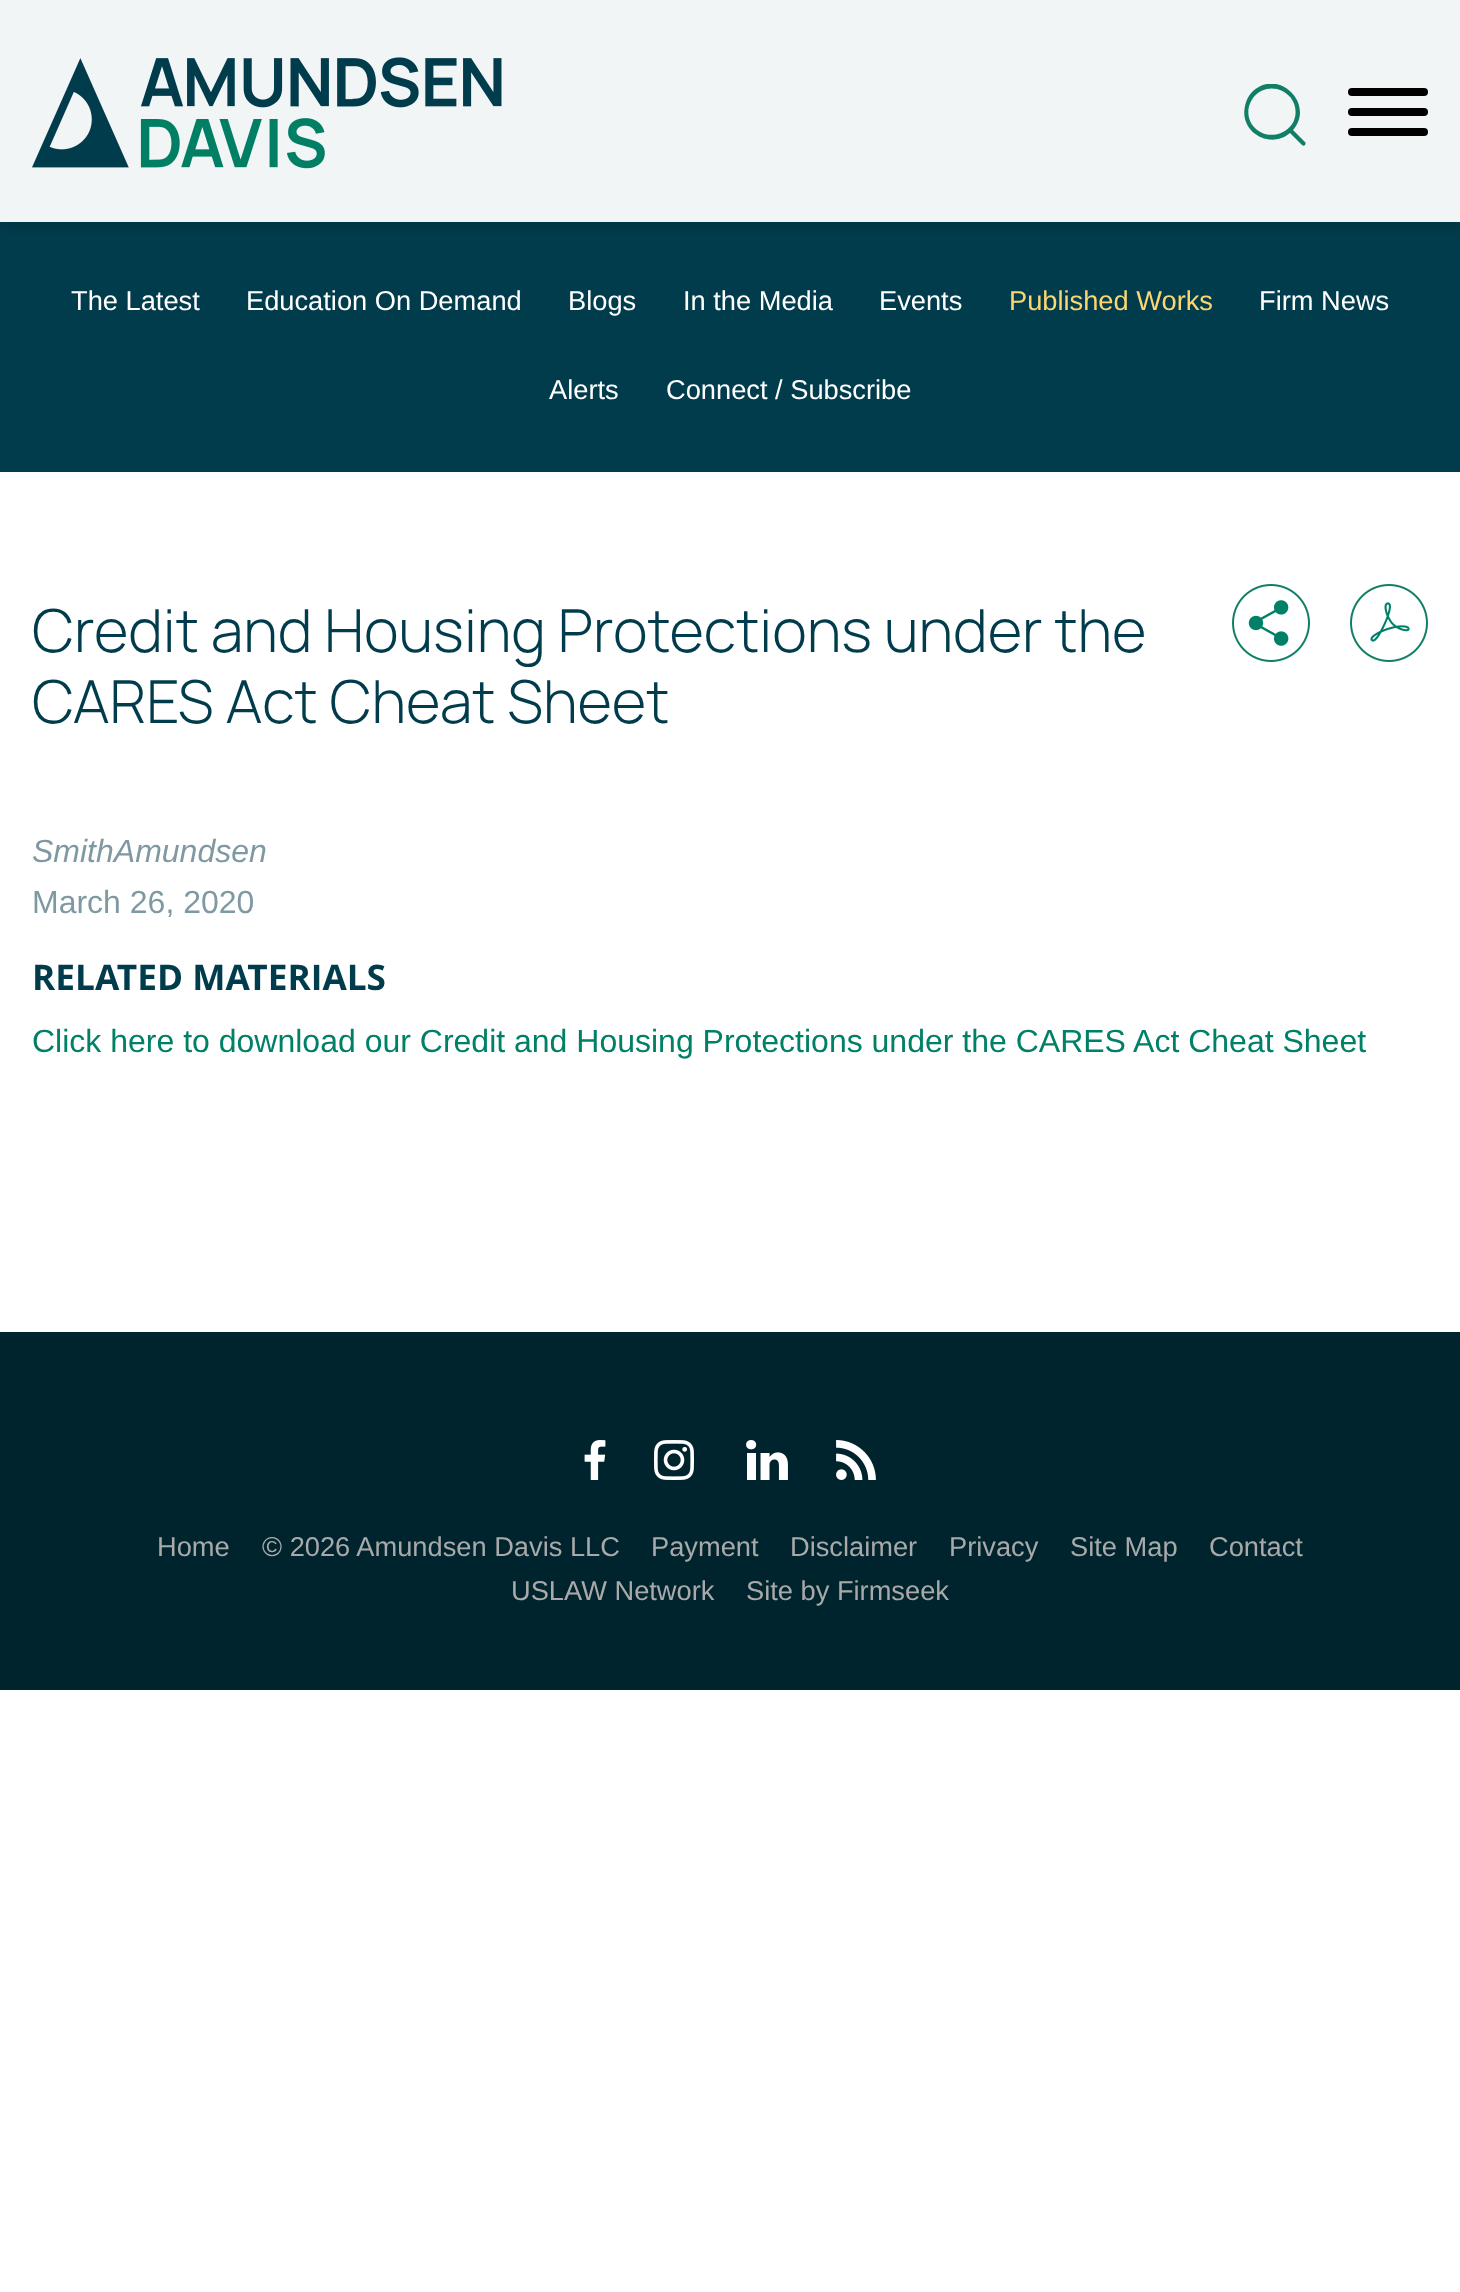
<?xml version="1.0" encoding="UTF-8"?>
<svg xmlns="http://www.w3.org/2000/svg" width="1460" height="2292">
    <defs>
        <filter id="blur1" x="-50%" y="-200%" width="200%" height="500%"><feGaussianBlur stdDeviation="6"/></filter>
        <clipPath id="clip1"><rect x="1244" y="84" width="62" height="62"/></clipPath>
    </defs>
    <rect width="100%" height="100%" fill="#FFFFFF"/>
    <rect x="0" y="222" width="1460" height="250" fill="#013C4D"/>
    <rect x="0" y="6" width="1460" height="222" fill="#000000" fill-opacity="0.16" filter="url(#blur1)"/>
    <rect x="0" y="0" width="1460" height="222" fill="#F2F5F6"/>
    <image x="32" y="57" width="470" height="112" href="img_01.png"/>
    <g clip-path="url(#clip1)">
        <path d="M 1305 142 L 1293 130 C 1316 103 1277 67 1252 92 C 1248 96 1246 101 1245 106 C 1239 132 1270 150 1290 133 L 1302 145 C 1304 147 1307 144 1305 142 Z M 1255 128 C 1239 112 1254 84 1277 89 C 1281 90 1285 92 1288 95 C 1292 98 1294 103 1295 107 C 1300 130 1271 144 1255 128 Z" fill="#107F66"/>
    </g>
    <rect x="1348" y="88" width="80" height="8" rx="4" fill="#000000"/>
    <rect x="1348" y="108" width="80" height="8" rx="4" fill="#000000"/>
    <rect x="1348" y="128" width="80" height="8" rx="4" fill="#000000"/>
    <text x="71" y="310" font-family="Liberation Sans" font-size="27.25" fill="#FFFFFF">The Latest</text>
    <text x="246" y="310" font-family="Liberation Sans" font-size="27.25" fill="#FFFFFF">Education On Demand</text>
    <text x="568" y="310" font-family="Liberation Sans" font-size="27.25" fill="#FFFFFF">Blogs</text>
    <text x="683" y="310" font-family="Liberation Sans" font-size="27.25" fill="#FFFFFF">In the Media</text>
    <text x="879" y="310" font-family="Liberation Sans" font-size="27.25" fill="#FFFFFF">Events</text>
    <text x="1009" y="310" font-family="Liberation Sans" font-size="27.25" fill="#FCD672">Published Works</text>
    <text x="1259" y="310" font-family="Liberation Sans" font-size="27.25" fill="#FFFFFF">Firm News</text>
    <text x="549" y="399" font-family="Liberation Sans" font-size="27.25" fill="#FFFFFF">Alerts</text>
    <text x="666" y="399" font-family="Liberation Sans" font-size="27.25" fill="#FFFFFF">Connect / Subscribe</text>
    <text font-family="Manrope" font-size="59.25" font-weight="300" fill="#013C4D">
        <tspan x="32" y="652">Credit and Housing Protections under the</tspan>
        <tspan x="32" y="723">CARES Act Cheat Sheet</tspan>
    </text>
    <image x="1232" y="584" width="78" height="78" href="img_02.png"/>
    <image x="1350" y="584" width="78" height="78" href="img_03.png"/>
    <text x="32" y="862" font-family="Liberation Sans" font-size="32" font-style="italic" fill="#7F99A2">SmithAmundsen</text>
    <text x="32" y="913" font-family="Liberation Sans" font-size="32" fill="#7F99A2">March 26, 2020</text>
    <text x="32" y="990" font-family="Open Sans" font-size="35.25" font-weight="700" fill="#013C4D">RELATED MATERIALS</text>
    <text x="32" y="1052" font-family="Liberation Sans" font-size="32" fill="#008066">Click here to download our Credit and Housing Protections under the CARES Act Cheat Sheet</text>
    <rect x="0" y="1332" width="1460" height="358" fill="#00242E"/>
    <image x="584" y="1440" width="22" height="40" href="img_04.png"/>
    <image x="654" y="1440" width="40" height="40" href="img_05.png"/>
    <image x="746" y="1440" width="42" height="40" href="img_06.png"/>
    <image x="836" y="1440" width="40" height="40" href="img_07.png"/>
    <text x="157" y="1556" font-family="Liberation Sans" font-size="27.25" fill="#A9A9A9">Home</text>
    <text x="262" y="1556" font-family="Liberation Sans" font-size="27.25" fill="#A9A9A9">© 2026 Amundsen Davis LLC</text>
    <text x="651" y="1556" font-family="Liberation Sans" font-size="27.25" fill="#A9A9A9">Payment</text>
    <text x="790" y="1556" font-family="Liberation Sans" font-size="27.25" fill="#A9A9A9">Disclaimer</text>
    <text x="949" y="1556" font-family="Liberation Sans" font-size="27.25" fill="#A9A9A9">Privacy</text>
    <text x="1070" y="1556" font-family="Liberation Sans" font-size="27.25" fill="#A9A9A9">Site Map</text>
    <text x="1209" y="1556" font-family="Liberation Sans" font-size="27.25" fill="#A9A9A9">Contact</text>
    <text x="511" y="1600" font-family="Liberation Sans" font-size="27.25" fill="#A9A9A9">USLAW Network</text>
    <text x="746" y="1600" font-family="Liberation Sans" font-size="27.25" fill="#A9A9A9">Site by Firmseek</text>
</svg>
